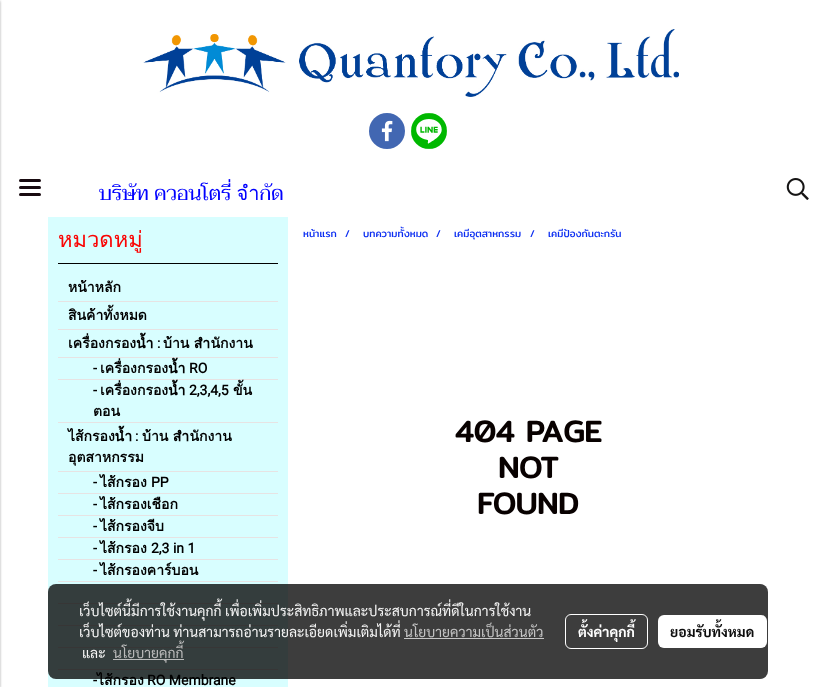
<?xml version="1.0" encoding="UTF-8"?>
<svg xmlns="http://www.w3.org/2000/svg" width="816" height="687">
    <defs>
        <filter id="blur1" x="-50%" y="-200%" width="200%" height="500%"><feGaussianBlur stdDeviation="1"/></filter>
        <filter id="blur2" x="-50%" y="-200%" width="200%" height="500%"><feGaussianBlur stdDeviation="1.5"/></filter>
    </defs>
    <rect width="100%" height="100%" fill="#FFFFFF"/>
    <image x="143" y="29" width="536" height="68" href="img_01.png"/>
    <circle cx="387" cy="131" r="18" fill="#4267B2"/>
    <image x="381" y="120" width="12" height="22" href="img_02.png"/>
    <circle cx="429" cy="131" r="18" fill="#00B800"/>
    <image x="411" y="113" width="36" height="36" href="img_03.png"/>
    <rect x="-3" y="1" width="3" height="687" fill="#000000" fill-opacity="0.24" filter="url(#blur1)"/>
    <rect x="-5" y="1" width="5" height="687" fill="#000000" fill-opacity="0.12" filter="url(#blur2)"/>
    <rect x="19" y="186" width="22" height="3" rx="1.5" fill="#180A10"/>
    <rect x="19" y="179" width="22" height="3" rx="1.5" fill="#180A10"/>
    <rect x="19" y="193" width="22" height="3" rx="1.5" fill="#180A10"/>
    <text x="99" y="200" font-family="Taviraj" font-size="20" fill="#0000FF">บริษัท ควอนโตรี่ จำกัด</text>
    <image x="786" y="178" width="23" height="22" href="img_04.png"/>
    <rect x="48" y="217" width="240" height="470" fill="#D8FEFF"/>
    <rect x="58" y="263" width="220" height="1" fill="#000000"/>
    <text x="58" y="247" font-family="Loma" font-size="22" fill="#FA0404">หมวดหมู่</text>
    <rect x="58" y="301" width="220" height="1" fill="#E7E3E3"/>
    <text x="68" y="292" font-family="Loma" font-size="14" font-weight="700" fill="#000000">หน้าหลัก</text>
    <rect x="58" y="329" width="220" height="1" fill="#E7E3E3"/>
    <text x="68" y="320" font-family="Loma" font-size="14" font-weight="700" fill="#000000">สินค้าทั้งหมด</text>
    <rect x="58" y="357" width="220" height="1" fill="#E7E3E3"/>
    <text x="68" y="348" font-family="Loma" font-size="14" font-weight="700" fill="#000000">เครื่องกรองน้ำ</text>
    <text x="157" y="348" font-family="Roboto" font-size="14" font-weight="700" fill="#000000">:</text>
    <text x="163" y="348" font-family="Loma" font-size="14" font-weight="700" fill="#000000">บ้าน สำนักงาน</text>
    <rect x="58" y="379" width="220" height="1" fill="#E7E3E3"/>
    <text x="93" y="373" font-family="Roboto" font-size="14" font-weight="700" fill="#000000">-</text>
    <text x="100" y="373" font-family="Loma" font-size="14" font-weight="700" fill="#000000">เครื่องกรองน้ำ</text>
    <text x="189" y="373" font-family="Roboto" font-size="14" font-weight="700" fill="#000000">RO</text>
    <rect x="58" y="422" width="220" height="1" fill="#E7E3E3"/>
    <text x="93" y="395" font-family="Roboto" font-size="14" font-weight="700" fill="#000000">-</text>
    <text x="100" y="395" font-family="Loma" font-size="14" font-weight="700" fill="#000000">เครื่องกรองน้ำ</text>
    <text x="189" y="395" font-family="Roboto" font-size="14" font-weight="700" fill="#000000">2,3,4,5</text>
    <text x="233" y="395" font-family="Loma" font-size="14" font-weight="700" fill="#000000">ขั้น</text>
    <text x="93" y="416" font-family="Loma" font-size="14" font-weight="700" fill="#000000">ตอน</text>
    <rect x="58" y="471" width="220" height="1" fill="#E7E3E3"/>
    <text x="68" y="441" font-family="Loma" font-size="14" font-weight="700" fill="#000000">ไส้กรองน้ำ</text>
    <text x="135" y="441" font-family="Roboto" font-size="14" font-weight="700" fill="#000000">:</text>
    <text x="142" y="441" font-family="Loma" font-size="14" font-weight="700" fill="#000000">บ้าน สำนักงาน</text>
    <text x="68" y="462" font-family="Loma" font-size="14" font-weight="700" fill="#000000">อุตสาหกรรม</text>
    <rect x="58" y="493" width="220" height="1" fill="#E7E3E3"/>
    <text x="93" y="487" font-family="Roboto" font-size="14" font-weight="700" fill="#000000">-</text>
    <text x="100" y="487" font-family="Loma" font-size="14" font-weight="700" fill="#000000">ไส้กรอง</text>
    <text x="151" y="487" font-family="Roboto" font-size="14" font-weight="700" fill="#000000">PP</text>
    <rect x="58" y="515" width="220" height="1" fill="#E7E3E3"/>
    <text x="93" y="509" font-family="Roboto" font-size="14" font-weight="700" fill="#000000">-</text>
    <text x="100" y="509" font-family="Loma" font-size="14" font-weight="700" fill="#000000">ไส้กรองเชือก</text>
    <rect x="58" y="537" width="220" height="1" fill="#E7E3E3"/>
    <text x="93" y="531" font-family="Roboto" font-size="14" font-weight="700" fill="#000000">-</text>
    <text x="100" y="531" font-family="Loma" font-size="14" font-weight="700" fill="#000000">ไส้กรองจีบ</text>
    <rect x="58" y="559" width="220" height="1" fill="#E7E3E3"/>
    <text x="93" y="553" font-family="Roboto" font-size="14" font-weight="700" fill="#000000">-</text>
    <text x="100" y="553" font-family="Loma" font-size="14" font-weight="700" fill="#000000">ไส้กรอง</text>
    <text x="151" y="553" font-family="Roboto" font-size="14" font-weight="700" fill="#000000">2,3 in 1</text>
    <rect x="58" y="581" width="220" height="1" fill="#E7E3E3"/>
    <text x="93" y="575" font-family="Roboto" font-size="14" font-weight="700" fill="#000000">-</text>
    <text x="100" y="575" font-family="Loma" font-size="14" font-weight="700" fill="#000000">ไส้กรองคาร์บอน</text>
    <rect x="58" y="603" width="220" height="1" fill="#E7E3E3"/>
    <rect x="58" y="625" width="220" height="1" fill="#E7E3E3"/>
    <rect x="58" y="647" width="220" height="1" fill="#E7E3E3"/>
    <rect x="58" y="669" width="220" height="1" fill="#E7E3E3"/>
    <text x="93" y="685" font-family="Roboto" font-size="14" font-weight="700" fill="#000000">-</text>
    <text x="97" y="685" font-family="Loma" font-size="14" font-weight="700" fill="#000000">ไส้กรอง</text>
    <text x="147" y="685" font-family="Roboto" font-size="14" font-weight="700" fill="#000000">RO Membrane</text>
    <text x="303" y="237" font-family="Mitr" font-size="10" fill="#0C2EF1">หน้าแรก</text>
    <text x="345" y="237" font-family="Mitr" font-size="10" fill="#0C2EF1">/</text>
    <text x="363" y="237" font-family="Mitr" font-size="10" fill="#0C2EF1">บทความทั้งหมด</text>
    <text x="436" y="237" font-family="Mitr" font-size="10" fill="#0C2EF1">/</text>
    <text x="454" y="237" font-family="Mitr" font-size="10" fill="#0C2EF1">เคมีอุตสาหกรรม</text>
    <text x="530" y="237" font-family="Mitr" font-size="10" fill="#0C2EF1">/</text>
    <text x="548" y="237" font-family="Mitr" font-size="10" fill="#0C2EF1">เคมีป้องกันตะกรัน</text>
    <text x="455" y="442" font-family="Mitr" font-size="30" font-weight="700" fill="#080100">404 PAGE</text>
    <text x="498" y="478" font-family="Mitr" font-size="30" font-weight="700" fill="#080100">NOT</text>
    <text x="477" y="514" font-family="Mitr" font-size="30" font-weight="700" fill="#080100">FOUND</text>
    <rect x="48" y="584" width="720" height="95" rx="8" fill="#000000" fill-opacity="0.76"/>
    <text font-family="Sarabun" font-size="14" fill="#F5F5F5">
        <tspan x="79" y="616">เว็บไซต์นี้มีการใช้งานคุกกี้ เพื่อเพิ่มประสิทธิภาพและประสบการณ์ที่ดีในการใช้งาน</tspan>
        <tspan x="79" y="637">เว็บไซต์ของท่าน ท่านสามารถอ่านรายละเอียดเพิ่มเติมได้ที่</tspan>
    </text>
    <text x="404" y="637" font-family="Sarabun" font-size="14" fill="#C5C5C5">นโยบายความเป็นส่วนตัว</text>
    <rect x="404" y="638" width="140" height="1" fill="#C5C5C5"/>
    <text x="82" y="658" font-family="Sarabun" font-size="14" fill="#F5F5F5">และ</text>
    <rect x="113" y="659" width="71" height="1" fill="#C2C2C2" fill-opacity="0.95"/>
    <text x="113" y="658" font-family="Sarabun" font-size="14" fill="#BBBBBB">นโยบายคุกกี้</text>
    <rect x="565.5" y="614.5" width="82" height="34" rx="5.5" fill="none" stroke="#FFFFFF"/>
    <text x="578" y="637" font-family="Sarabun" font-size="14" font-weight="700" fill="#FFFFFF">ตั้งค่าคุกกี้</text>
    <rect x="658" y="615" width="109" height="33" rx="6" fill="#FFFFFF"/>
    <text x="670" y="637" font-family="Sarabun" font-size="14" font-weight="700" fill="#0D0D0D">ยอมรับทั้งหมด</text>
</svg>
